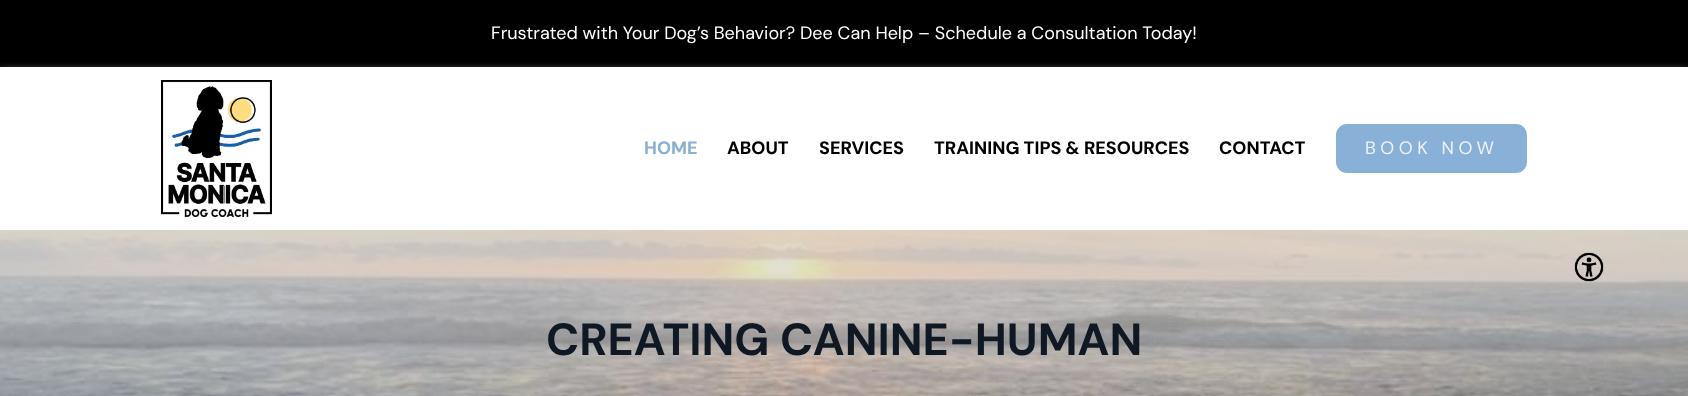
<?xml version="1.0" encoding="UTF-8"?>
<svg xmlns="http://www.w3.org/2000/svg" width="1688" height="396">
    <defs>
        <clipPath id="clip1"><rect x="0" y="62" width="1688" height="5"/></clipPath>
        <filter id="blur1" x="-50%" y="-200%" width="200%" height="500%"><feGaussianBlur stdDeviation="5"/></filter>
    </defs>
    <rect width="100%" height="100%" fill="#FFFFFF"/>
    <rect x="0" y="0" width="1688" height="67" fill="#000000"/>
    <text x="491" y="39" font-family="DM Sans" font-size="18" fill="#FFFFFF">Frustrated with Your Dog’s Behavior? Dee Can Help – Schedule a Consultation Today!</text>
    <g clip-path="url(#clip1)">
        <rect x="0" y="72" width="1688" height="163" fill="#D9D9D9" filter="url(#blur1)"/>
    </g>
    <image x="161" y="80" width="111" height="137" href="img_01.png"/>
    <text x="644" y="154" font-family="DM Sans" font-size="18" font-weight="800" fill="#89B0D7">HOME</text>
    <text x="727" y="154" font-family="DM Sans" font-size="18" font-weight="800" fill="#000000">ABOUT</text>
    <text x="819" y="154" font-family="DM Sans" font-size="18" font-weight="800" fill="#000000">SERVICES</text>
    <text x="934" y="154" font-family="DM Sans" font-size="18" font-weight="800" fill="#000000">TRAINING TIPS &amp; RESOURCES</text>
    <text x="1219" y="154" font-family="DM Sans" font-size="18" font-weight="800" fill="#000000">CONTACT</text>
    <rect x="1337" y="125" width="189" height="47" rx="10" fill="#89B0D7" stroke="#89B0D7" stroke-width="2"/>
    <text x="1365" y="154" font-family="DM Sans" font-size="18" letter-spacing="4.5" fill="#ECF2F8">BOOK NOW</text>
    <image x="0" y="230" width="1688" height="166" href="img_03.png"/>
    <image x="1574" y="252" width="30" height="30" href="img_02.png"/>
    <text x="546" y="355" font-family="DM Sans" font-size="45" font-weight="700" fill="#101923">CREATING CANINE-HUMAN</text>
</svg>
